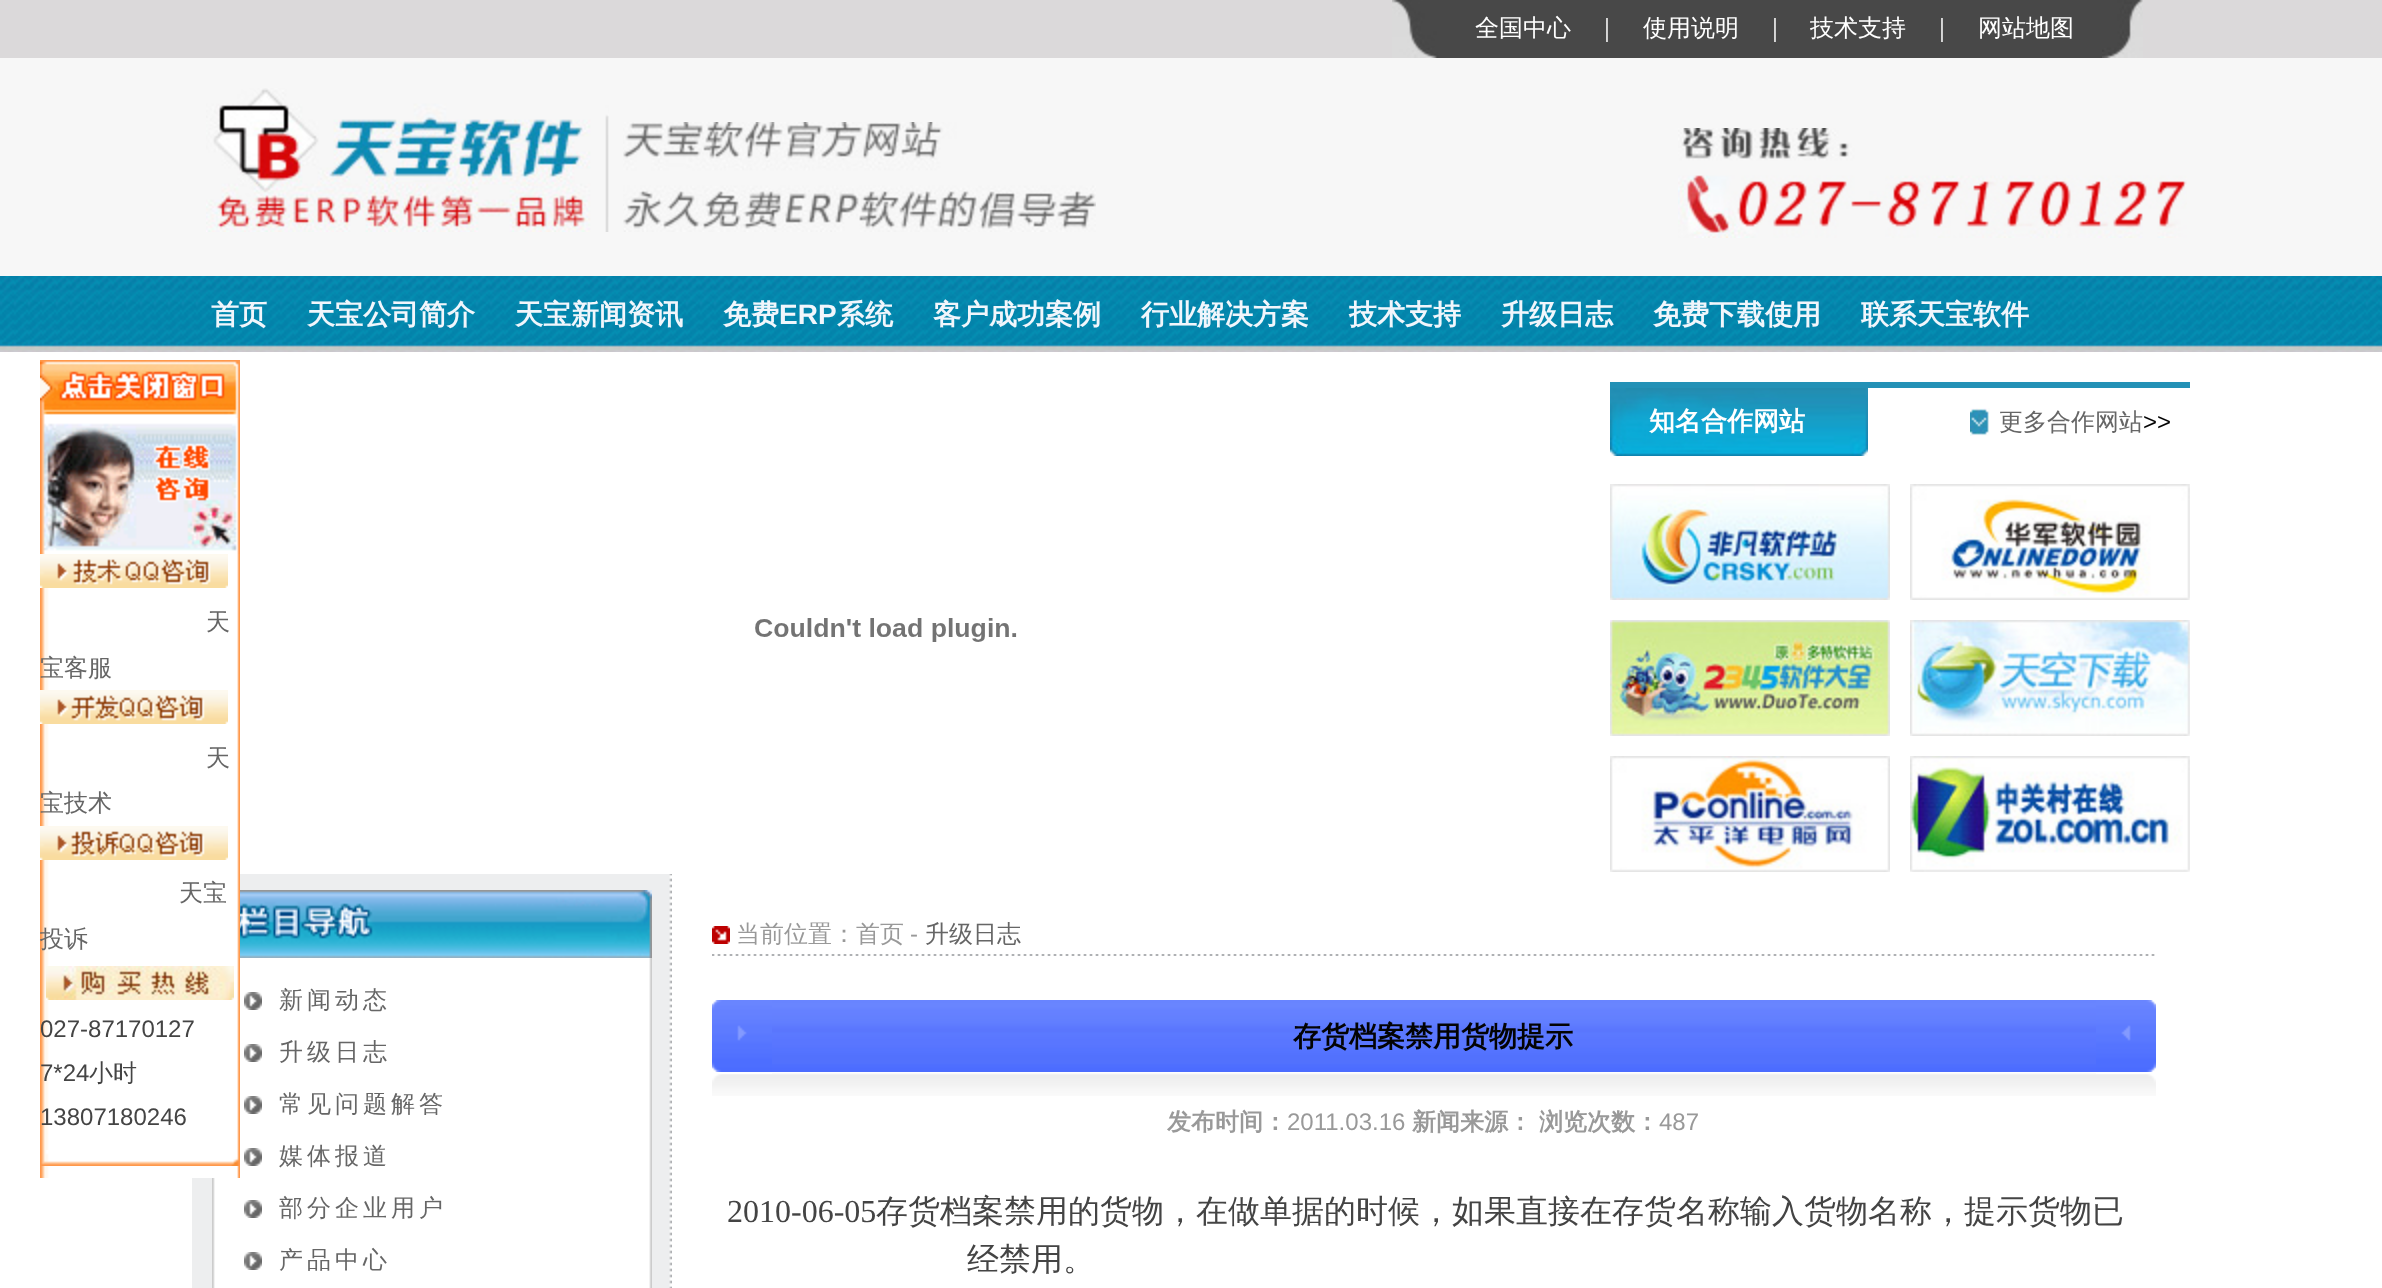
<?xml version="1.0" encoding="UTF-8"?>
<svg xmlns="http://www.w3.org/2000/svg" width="2382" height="1288">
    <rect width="100%" height="100%" fill="#FFFFFF"/>
    <rect x="0" y="0" width="2382" height="58" fill="#DBD9DA"/>
    <image x="1392" y="0" width="60" height="58" href="img_01.png"/>
    <rect x="1452" y="0" width="650" height="58" fill="#484848"/>
    <text x="1475" y="36" font-family="WenQuanYi Zen Hei" font-size="24" font-weight="500" fill="#FFFFFF">全国中心</text>
    <text x="1595" y="36" font-family="WenQuanYi Zen Hei" font-size="24" font-weight="500" fill="#FFFFFF">｜</text>
    <text x="1643" y="36" font-family="WenQuanYi Zen Hei" font-size="24" font-weight="500" fill="#FFFFFF">使用说明</text>
    <text x="1763" y="36" font-family="WenQuanYi Zen Hei" font-size="24" font-weight="500" fill="#FFFFFF">｜</text>
    <text x="1810" y="36" font-family="WenQuanYi Zen Hei" font-size="24" font-weight="500" fill="#FFFFFF">技术支持</text>
    <text x="1930" y="36" font-family="WenQuanYi Zen Hei" font-size="24" font-weight="500" fill="#FFFFFF">｜</text>
    <text x="1978" y="36" font-family="WenQuanYi Zen Hei" font-size="24" font-weight="500" fill="#FFFFFF">网站地图</text>
    <image x="2102" y="0" width="41" height="58" href="img_02.png"/>
    <rect x="0" y="58" width="2382" height="218" fill="#F7F7F7"/>
    <image x="206" y="88" width="403" height="144" href="img_03.png"/>
    <image x="623" y="122" width="473" height="110" href="img_04.png"/>
    <image x="1678" y="128" width="509" height="110" href="img_05.png"/>
    <image x="0" y="276" width="2382" height="76" href="img_06.png"/>
    <text x="211" y="324" font-family="WenQuanYi Zen Hei" font-size="28" font-weight="700" fill="#F1F6FC">首页</text>
    <text x="307" y="324" font-family="WenQuanYi Zen Hei" font-size="28" font-weight="700" fill="#F1F6FC">天宝公司简介</text>
    <text x="515" y="324" font-family="WenQuanYi Zen Hei" font-size="28" font-weight="700" fill="#F1F6FC">天宝新闻资讯</text>
    <text x="723" y="324" font-family="WenQuanYi Zen Hei" font-size="28" font-weight="700" fill="#F1F6FC">免费</text>
    <text x="779" y="324" font-family="Liberation Sans" font-size="28" font-weight="700" fill="#F1F6FC">ERP</text>
    <text x="837" y="324" font-family="WenQuanYi Zen Hei" font-size="28" font-weight="700" fill="#F1F6FC">系统</text>
    <text x="933" y="324" font-family="WenQuanYi Zen Hei" font-size="28" font-weight="700" fill="#F1F6FC">客户成功案例</text>
    <text x="1141" y="324" font-family="WenQuanYi Zen Hei" font-size="28" font-weight="700" fill="#F1F6FC">行业解决方案</text>
    <text x="1349" y="324" font-family="WenQuanYi Zen Hei" font-size="28" font-weight="700" fill="#F1F6FC">技术支持</text>
    <text x="1501" y="324" font-family="WenQuanYi Zen Hei" font-size="28" font-weight="700" fill="#F1F6FC">升级日志</text>
    <text x="1653" y="324" font-family="WenQuanYi Zen Hei" font-size="28" font-weight="700" fill="#F1F6FC">免费下载使用</text>
    <text x="1861" y="324" font-family="WenQuanYi Zen Hei" font-size="28" font-weight="700" fill="#F1F6FC">联系天宝软件</text>
    <rect x="1610" y="382" width="580" height="6" fill="#2391B6"/>
    <image x="1610" y="388" width="258" height="68" href="img_07.png"/>
    <text x="1649" y="430" font-family="WenQuanYi Zen Hei" font-size="26" font-weight="700" fill="#FFFFFF">知名合作网站</text>
    <image x="1970" y="408" width="20" height="28" href="img_08.png"/>
    <text x="1999" y="430" font-family="WenQuanYi Zen Hei" font-size="24" font-weight="500" fill="#666666">更多合作网站</text>
    <text x="2143" y="430" font-family="Liberation Sans" font-size="24" fill="#030303">&gt;&gt;</text>
    <image x="1610" y="484" width="280" height="116" href="img_09.png"/>
    <image x="1910" y="484" width="280" height="116" href="img_10.png"/>
    <image x="1610" y="620" width="280" height="116" href="img_11.png"/>
    <image x="1910" y="620" width="280" height="116" href="img_12.png"/>
    <image x="1610" y="756" width="280" height="116" href="img_13.png"/>
    <image x="1910" y="756" width="280" height="116" href="img_14.png"/>
    <image x="755" y="618" width="262" height="24" href="img_15.png"/>
    <image x="40" y="360" width="200" height="58" href="img_16.png"/>
    <image x="40" y="418" width="200" height="136" href="img_17.png"/>
    <image x="192" y="874" width="480" height="414" href="img_24.png"/>
    <image x="212" y="958" width="440" height="330" href="img_26.png"/>
    <image x="40" y="554" width="200" height="624" href="img_18.png"/>
    <image x="40" y="554" width="188" height="34" href="img_19.png"/>
    <text x="206" y="630" font-family="WenQuanYi Zen Hei" font-size="24" font-weight="500" fill="#666666">天</text>
    <text x="40" y="676" font-family="WenQuanYi Zen Hei" font-size="24" font-weight="500" fill="#666666">宝客服</text>
    <image x="40" y="690" width="188" height="34" href="img_20.png"/>
    <text x="206" y="766" font-family="WenQuanYi Zen Hei" font-size="24" font-weight="500" fill="#666666">天</text>
    <text x="40" y="811" font-family="WenQuanYi Zen Hei" font-size="24" font-weight="500" fill="#666666">宝技术</text>
    <image x="40" y="826" width="188" height="34" href="img_21.png"/>
    <text x="179" y="901" font-family="WenQuanYi Zen Hei" font-size="24" font-weight="500" fill="#666666">天宝</text>
    <text x="40" y="947" font-family="WenQuanYi Zen Hei" font-size="24" font-weight="500" fill="#666666">投诉</text>
    <image x="46" y="966" width="188" height="34" href="img_22.png"/>
    <text font-family="Liberation Sans" font-size="24" fill="#444444">
        <tspan x="40" y="1037">027-87170127</tspan>
        <tspan x="40" y="1081">7*24</tspan>
    </text>
    <text x="89" y="1081" font-family="WenQuanYi Zen Hei" font-size="24" font-weight="500" fill="#444444">小时</text>
    <text x="40" y="1125" font-family="Liberation Sans" font-size="24" fill="#444444">13807180246</text>
    <image x="41" y="1150" width="198" height="16" href="img_23.png"/>
    <image x="240" y="890" width="412" height="68" href="img_25.png"/>
    <image x="244" y="992" width="18" height="18" href="img_27.png"/>
    <text x="279" y="1008" font-family="WenQuanYi Zen Hei" font-size="24" font-weight="500" letter-spacing="4" fill="#666666">新闻动态</text>
    <image x="244" y="1044" width="18" height="18" href="img_27.png"/>
    <text x="279" y="1060" font-family="WenQuanYi Zen Hei" font-size="24" font-weight="500" letter-spacing="4" fill="#666666">升级日志</text>
    <image x="244" y="1096" width="18" height="18" href="img_27.png"/>
    <text x="279" y="1112" font-family="WenQuanYi Zen Hei" font-size="24" font-weight="500" letter-spacing="4" fill="#666666">常见问题解答</text>
    <image x="244" y="1148" width="18" height="18" href="img_27.png"/>
    <text x="279" y="1164" font-family="WenQuanYi Zen Hei" font-size="24" font-weight="500" letter-spacing="4" fill="#666666">媒体报道</text>
    <image x="244" y="1200" width="18" height="18" href="img_27.png"/>
    <text x="279" y="1216" font-family="WenQuanYi Zen Hei" font-size="24" font-weight="500" letter-spacing="4" fill="#666666">部分企业用户</text>
    <image x="244" y="1252" width="18" height="18" href="img_27.png"/>
    <text x="279" y="1268" font-family="WenQuanYi Zen Hei" font-size="24" font-weight="500" letter-spacing="4" fill="#666666">产品中心</text>
    <image x="712" y="954" width="1443" height="2" href="img_28.png"/>
    <image x="712" y="926" width="18" height="18" href="img_29.png"/>
    <text x="736" y="942" font-family="WenQuanYi Zen Hei" font-size="24" font-weight="500" fill="#999999">当前位置：首页</text>
    <text x="910" y="942" font-family="Liberation Sans" font-size="24" fill="#999999">-</text>
    <text x="925" y="942" font-family="WenQuanYi Zen Hei" font-size="24" font-weight="500" fill="#666666">升级日志</text>
    <image x="712" y="1000" width="60" height="72" href="img_30.png"/>
    <image x="772" y="1000" width="1324" height="72" href="img_31.png"/>
    <text x="1293" y="1046" font-family="WenQuanYi Zen Hei" font-size="28" font-weight="700" fill="#030303">存货档案禁用货物提示</text>
    <image x="2096" y="1000" width="60" height="72" href="img_32.png"/>
    <image x="712" y="1074" width="60" height="22" href="img_33.png"/>
    <image x="772" y="1073" width="1324" height="23" href="img_34.png"/>
    <image x="2096" y="1074" width="60" height="22" href="img_35.png"/>
    <text x="1167" y="1130" font-family="WenQuanYi Zen Hei" font-size="24" font-weight="700" fill="#999999">发布时间：</text>
    <text x="1287" y="1130" font-family="Liberation Sans" font-size="24" fill="#999999">2011.03.16</text>
    <text x="1412" y="1130" font-family="WenQuanYi Zen Hei" font-size="24" font-weight="700" fill="#999999">新闻来源：</text>
    <text x="1539" y="1130" font-family="WenQuanYi Zen Hei" font-size="24" font-weight="700" fill="#999999">浏览次数：</text>
    <text x="1659" y="1130" font-family="Liberation Sans" font-size="24" fill="#999999">487</text>
    <text x="727" y="1222" font-family="Liberation Serif" font-size="32" fill="#444444">2010-06-05</text>
    <text x="876" y="1222" font-family="WenQuanYi Zen Hei" font-size="32" font-weight="500" fill="#444444">存货档案禁用的货物，在做单据的时候，如果直接在存货名称输入货物名称，提示货物已</text>
    <text x="967" y="1270" font-family="WenQuanYi Zen Hei" font-size="32" font-weight="500" fill="#444444">经禁用。</text>
</svg>
